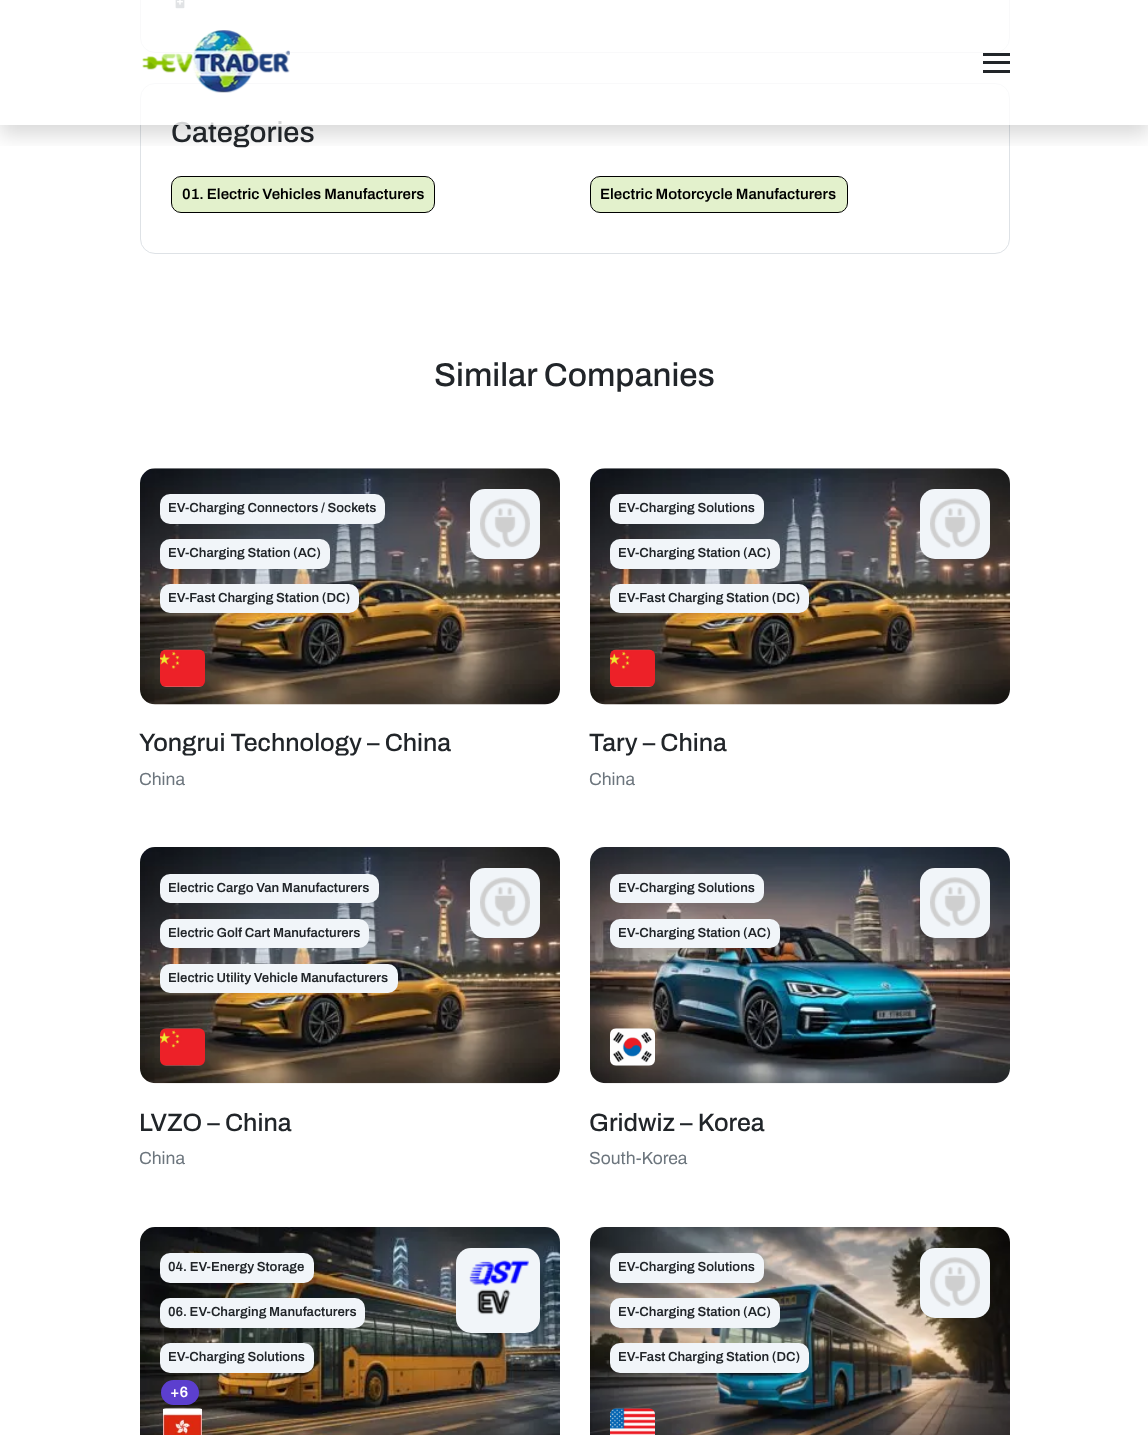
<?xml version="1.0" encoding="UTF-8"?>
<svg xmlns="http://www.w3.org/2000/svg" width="1148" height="1435">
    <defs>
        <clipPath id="clip1"><rect x="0" y="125" width="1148" height="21"/></clipPath>
        <filter id="blur1" x="-50%" y="-200%" width="200%" height="500%"><feGaussianBlur stdDeviation="10"/></filter>
    </defs>
    <rect width="100%" height="100%" fill="#FFFFFF"/>
    <rect x="140.5" y="-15.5" width="869" height="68" rx="14.5" fill="none" stroke="#DEE2E6"/>
    <image x="175" y="0" width="10" height="9" href="img_02.png"/>
    <rect x="140.5" y="83.5" width="869" height="170" rx="14.5" fill="none" stroke="#DEE2E6"/>
    <g clip-path="url(#clip1)">
        <rect x="0" y="10" width="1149" height="125" fill="#000000" fill-opacity="0.15" filter="url(#blur1)"/>
    </g>
    <text x="171" y="142" font-family="Archivo" font-size="29" font-weight="500" fill="#212529">Categories</text>
    <rect x="140" y="0" width="870" height="125" fill="#FFFFFF" fill-opacity="0.8"/>
    <image x="142" y="30" width="148" height="63" href="img_01.png"/>
    <rect x="983" y="53" width="27" height="3" fill="#212529"/>
    <rect x="983" y="61" width="27" height="3" fill="#212529"/>
    <rect x="983" y="70" width="27" height="3" fill="#212529"/>
    <rect x="171.5" y="176.5" width="263" height="36" rx="9.5" fill="#E3F1CC" stroke="#000000"/>
    <text x="182" y="199" font-family="Archivo" font-size="15" font-weight="600" fill="#000000">01. Electric Vehicles Manufacturers</text>
    <rect x="590.5" y="176.5" width="257" height="36" rx="9.5" fill="#E3F1CC" stroke="#000000"/>
    <text x="600" y="199" font-family="Archivo" font-size="15" font-weight="600" fill="#000000">Electric Motorcycle Manufacturers</text>
    <text x="434" y="386" font-family="Archivo" font-size="33" font-weight="500" fill="#212529">Similar Companies</text>
    <image x="140" y="468" width="420" height="237" href="img_03.png"/>
    <rect x="470" y="489" width="70" height="70" rx="15" fill="#F1F5F9"/>
    <image x="480" y="498" width="50" height="51" href="img_04.png"/>
    <image x="160" y="649" width="45" height="38" href="img_05.png"/>
    <rect x="160" y="494" width="225" height="30" rx="10" fill="#F1F5F9"/>
    <text x="168" y="512" font-family="Archivo" font-size="13.1" font-weight="600" fill="#212529">EV-Charging Connectors / Sockets</text>
    <rect x="160" y="539" width="170" height="30" rx="10" fill="#F1F5F9"/>
    <text x="168" y="557" font-family="Archivo" font-size="13.1" font-weight="600" fill="#212529">EV-Charging Station (AC)</text>
    <rect x="160" y="584" width="199" height="29" rx="10" fill="#F1F5F9"/>
    <text x="168" y="602" font-family="Archivo" font-size="13.1" font-weight="600" fill="#212529">EV-Fast Charging Station (DC)</text>
    <text x="139" y="751" font-family="Archivo" font-size="25" font-weight="500" fill="#212529">Yongrui Technology – China</text>
    <text x="139" y="785" font-family="Archivo" font-size="17.5" fill="#6C757D">China</text>
    <image x="590" y="468" width="420" height="237" href="img_06.png"/>
    <rect x="920" y="489" width="70" height="70" rx="15" fill="#F1F5F9"/>
    <image x="930" y="498" width="50" height="51" href="img_04.png"/>
    <image x="610" y="649" width="45" height="38" href="img_05.png"/>
    <rect x="610" y="494" width="154" height="30" rx="10" fill="#F1F5F9"/>
    <text x="618" y="512" font-family="Archivo" font-size="13.1" font-weight="600" fill="#212529">EV-Charging Solutions</text>
    <rect x="610" y="539" width="170" height="30" rx="10" fill="#F1F5F9"/>
    <text x="618" y="557" font-family="Archivo" font-size="13.1" font-weight="600" fill="#212529">EV-Charging Station (AC)</text>
    <rect x="610" y="584" width="199" height="29" rx="10" fill="#F1F5F9"/>
    <text x="618" y="602" font-family="Archivo" font-size="13.1" font-weight="600" fill="#212529">EV-Fast Charging Station (DC)</text>
    <text x="589" y="751" font-family="Archivo" font-size="25" font-weight="500" fill="#212529">Tary – China</text>
    <text x="589" y="785" font-family="Archivo" font-size="17.5" fill="#6C757D">China</text>
    <image x="140" y="847" width="420" height="237" href="img_07.png"/>
    <rect x="470" y="868" width="70" height="70" rx="15" fill="#F1F5F9"/>
    <image x="480" y="877" width="50" height="50" href="img_08.png"/>
    <image x="160" y="1028" width="45" height="38" href="img_09.png"/>
    <rect x="160" y="874" width="219" height="29" rx="10" fill="#F1F5F9"/>
    <text x="168" y="892" font-family="Archivo" font-size="13.1" font-weight="600" fill="#212529">Electric Cargo Van Manufacturers</text>
    <rect x="160" y="919" width="209" height="29" rx="10" fill="#F1F5F9"/>
    <text x="168" y="937" font-family="Archivo" font-size="13.1" font-weight="600" fill="#212529">Electric Golf Cart Manufacturers</text>
    <rect x="160" y="964" width="238" height="29" rx="10" fill="#F1F5F9"/>
    <text x="168" y="982" font-family="Archivo" font-size="13.1" font-weight="600" fill="#212529">Electric Utility Vehicle Manufacturers</text>
    <text x="139" y="1131" font-family="Archivo" font-size="25" font-weight="500" fill="#212529">LVZO – China</text>
    <text x="139" y="1164" font-family="Archivo" font-size="17.5" fill="#6C757D">China</text>
    <image x="590" y="847" width="420" height="237" href="img_10.png"/>
    <rect x="920" y="868" width="70" height="70" rx="15" fill="#F1F5F9"/>
    <image x="930" y="877" width="50" height="50" href="img_08.png"/>
    <image x="610" y="1028" width="45" height="38" href="img_11.png"/>
    <rect x="610" y="874" width="154" height="29" rx="10" fill="#F1F5F9"/>
    <text x="618" y="892" font-family="Archivo" font-size="13.1" font-weight="600" fill="#212529">EV-Charging Solutions</text>
    <rect x="610" y="919" width="170" height="29" rx="10" fill="#F1F5F9"/>
    <text x="618" y="937" font-family="Archivo" font-size="13.1" font-weight="600" fill="#212529">EV-Charging Station (AC)</text>
    <text x="589" y="1131" font-family="Archivo" font-size="25" font-weight="500" fill="#212529">Gridwiz – Korea</text>
    <text x="589" y="1164" font-family="Archivo" font-size="17.5" fill="#6C757D">South-Korea</text>
    <image x="140" y="1227" width="420" height="208" href="img_12.png"/>
    <rect x="456" y="1248" width="84" height="85" rx="15" fill="#F1F5F9"/>
    <image x="469" y="1260" width="60" height="55" href="img_13.png"/>
    <image x="163" y="1408" width="39" height="27" href="img_14.png"/>
    <rect x="160" y="1253" width="154" height="30" rx="10" fill="#F1F5F9"/>
    <text x="168" y="1271" font-family="Archivo" font-size="13.1" font-weight="600" fill="#212529">04. EV-Energy Storage</text>
    <rect x="160" y="1298" width="205" height="30" rx="10" fill="#F1F5F9"/>
    <text x="168" y="1316" font-family="Archivo" font-size="13.1" font-weight="600" fill="#212529">06. EV-Charging Manufacturers</text>
    <rect x="160" y="1343" width="154" height="30" rx="10" fill="#F1F5F9"/>
    <text x="168" y="1361" font-family="Archivo" font-size="13.1" font-weight="600" fill="#212529">EV-Charging Solutions</text>
    <rect x="161" y="1380" width="38" height="25" rx="12.5" fill="#5C3FCE"/>
    <text x="170" y="1397" font-family="Archivo" font-size="15" font-weight="600" fill="#FFFFFF">+6</text>
    <image x="590" y="1227" width="420" height="208" href="img_15.png"/>
    <rect x="920" y="1248" width="70" height="70" rx="15" fill="#F1F5F9"/>
    <image x="930" y="1257" width="50" height="50" href="img_08.png"/>
    <image x="610" y="1408" width="45" height="27" href="img_16.png"/>
    <rect x="610" y="1253" width="154" height="30" rx="10" fill="#F1F5F9"/>
    <text x="618" y="1271" font-family="Archivo" font-size="13.1" font-weight="600" fill="#212529">EV-Charging Solutions</text>
    <rect x="610" y="1298" width="170" height="30" rx="10" fill="#F1F5F9"/>
    <text x="618" y="1316" font-family="Archivo" font-size="13.1" font-weight="600" fill="#212529">EV-Charging Station (AC)</text>
    <rect x="610" y="1343" width="199" height="30" rx="10" fill="#F1F5F9"/>
    <text x="618" y="1361" font-family="Archivo" font-size="13.1" font-weight="600" fill="#212529">EV-Fast Charging Station (DC)</text>
</svg>
